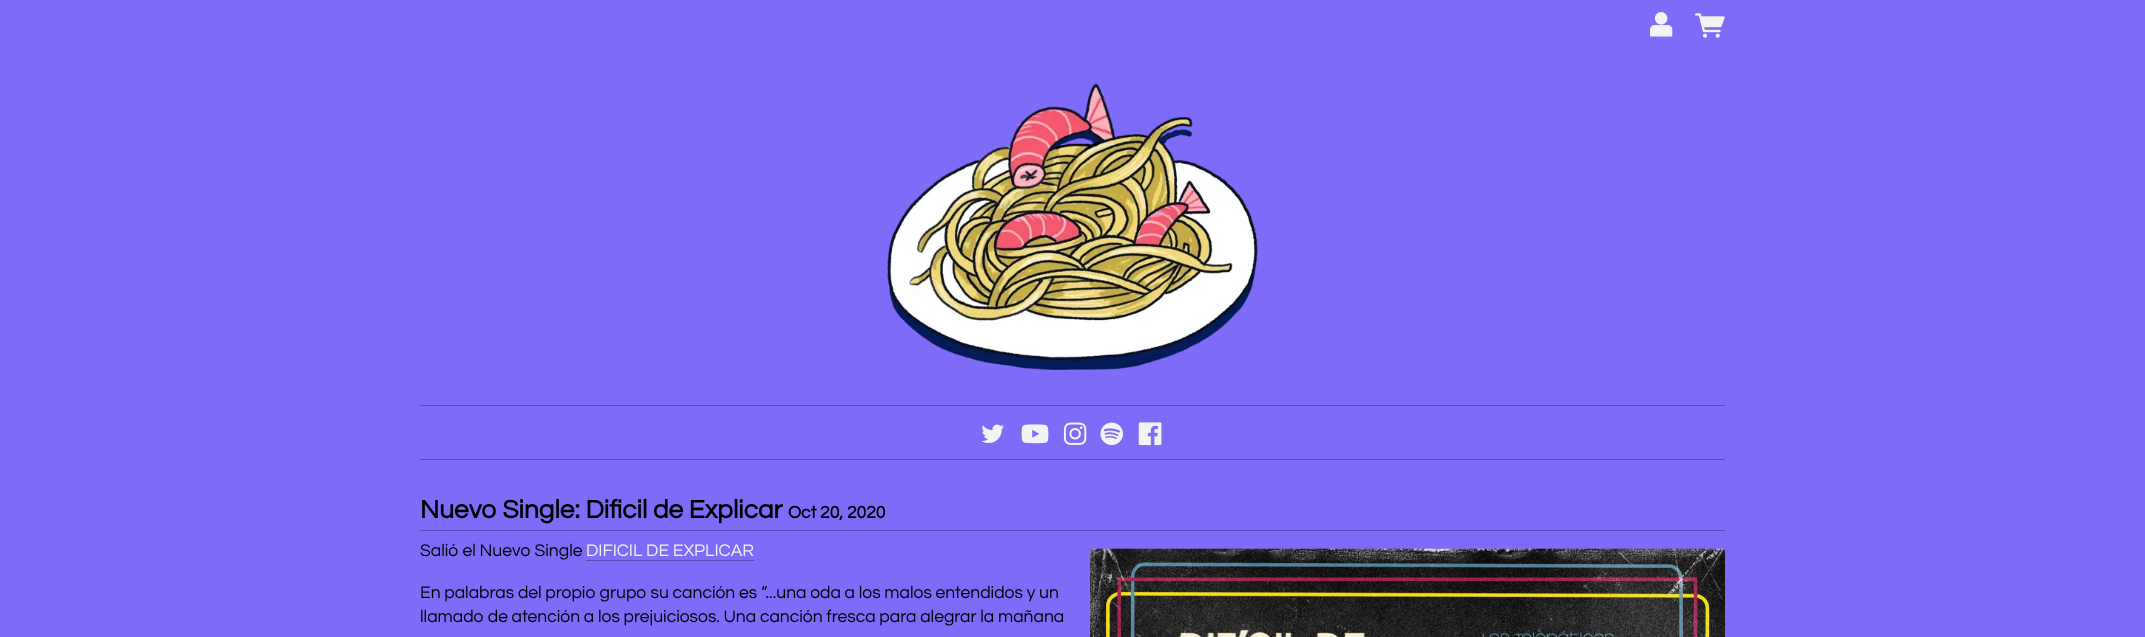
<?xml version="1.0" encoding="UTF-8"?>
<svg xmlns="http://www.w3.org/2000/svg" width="2145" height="637">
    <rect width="100%" height="100%" fill="#7E6BF7"/>
    <image x="1650" y="12" width="23" height="25" href="img_01.png"/>
    <image x="1695" y="13" width="30" height="25" href="img_02.png"/>
    <image x="887" y="83" width="371" height="287" href="img_03.png"/>
    <rect x="420" y="405" width="1305" height="1" fill="#584BAD"/>
    <rect x="420" y="459" width="1305" height="1" fill="#584BAD"/>
    <image x="981" y="424" width="23" height="19" href="img_04.png"/>
    <image x="1021" y="424" width="28" height="20" href="img_05.png"/>
    <image x="1063" y="422" width="24" height="23" href="img_06.png"/>
    <image x="1100" y="422" width="23" height="24" href="img_07.png"/>
    <image x="1138" y="422" width="24" height="24" href="img_08.png"/>
    <rect x="420" y="530" width="1305" height="1" fill="#584BAD"/>
    <text x="420" y="518" font-family="Questrial" font-size="26.25" font-weight="700" fill="#000000">Nuevo Single: Dificil de Explicar</text>
    <text x="788" y="518" font-family="Questrial" font-size="17.5" font-weight="700" fill="#000000">Oct 20, 2020</text>
    <text x="420" y="556" font-family="Questrial" font-size="17.5" fill="#000000">Salió el Nuevo Single</text>
    <text x="586" y="556" font-family="Questrial" font-size="17.5" fill="#F3F3F3">DIFICIL DE EXPLICAR</text>
    <rect x="586" y="560" width="168" height="1" fill="#584BAD"/>
    <text font-family="Questrial" font-size="17.5" fill="#000000">
        <tspan x="420" y="598">En palabras del propio grupo su canción es “...una oda a los malos entendidos y un</tspan>
        <tspan x="420" y="622">llamado de atención a los prejuiciosos. Una canción fresca para alegrar la mañana</tspan>
    </text>
    <image x="1090" y="548" width="635" height="89" href="img_09.png"/>
</svg>
